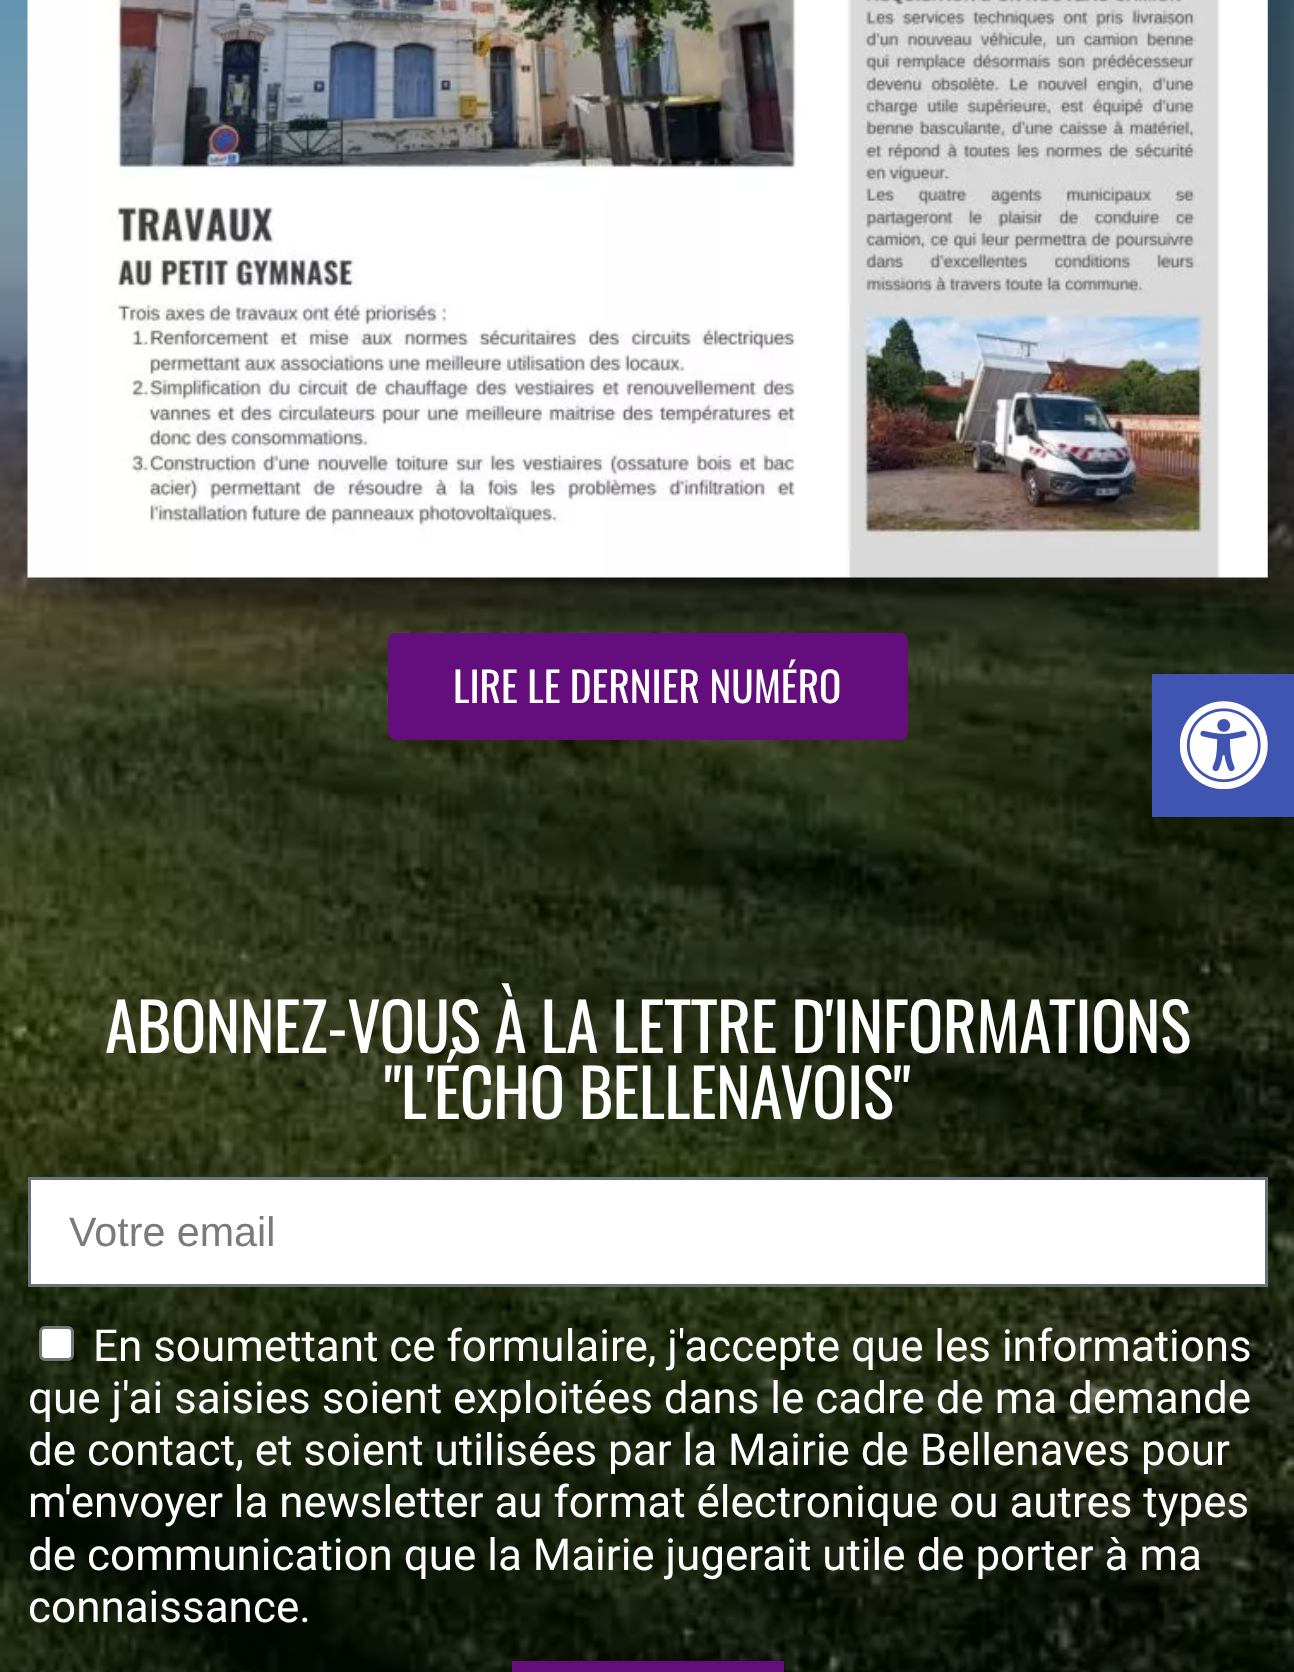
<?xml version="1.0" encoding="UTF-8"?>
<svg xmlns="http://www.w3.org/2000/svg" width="1294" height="1672">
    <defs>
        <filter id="blur1" x="-50%" y="-200%" width="200%" height="500%"><feGaussianBlur stdDeviation="25"/></filter>
    </defs>
    <rect width="100%" height="100%" fill="#FFFFFF"/>
    <image x="0" y="0" width="1294" height="1672" href="img_01.png"/>
    <rect x="80" y="-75" width="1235" height="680" fill="#000000" fill-opacity="0.5" filter="url(#blur1)"/>
    <image x="27" y="0" width="1241" height="578" href="img_02.png"/>
    <rect x="388" y="633" width="520" height="107" rx="8" fill="#630E7C"/>
    <text x="453" y="703" font-family="Oswald" font-size="41.25" fill="#FFFFFF">LIRE LE DERNIER NUMÉRO</text>
    <text x="105" y="1053" font-family="Oswald" font-size="66" letter-spacing="-0.7" fill="#FFFFFF">ABONNEZ-VOUS À LA LETTRE D'INFORMATIONS</text>
    <text x="384" y="1119" font-family="Oswald" font-size="66" letter-spacing="-0.7" fill="#FFFFFF">"L'ÉCHO BELLENAVOIS"</text>
    <rect x="29.5" y="1178.5" width="1237" height="107" fill="#FFFFFF" stroke="#69727D" stroke-width="3"/>
    <text x="69" y="1246" font-family="Liberation Sans" font-size="41.25" fill="#797A7C">Votre email</text>
    <rect x="40.5" y="1327.5" width="32" height="32" rx="4.5" fill="#FFFFFF" stroke="#767676" stroke-width="3"/>
    <text x="93" y="1361" font-family="Roboto" font-size="44" fill="#FFFFFF">En soumettant ce formulaire, j'accepte que les informations</text>
    <text font-family="Roboto" font-size="44" fill="#FFFFFF">
        <tspan x="28" y="1413">que j'ai saisies soient exploitées dans le cadre de ma demande</tspan>
        <tspan x="28" y="1465">de contact, et soient utilisées par la Mairie de Bellenaves pour</tspan>
        <tspan x="28" y="1517">m'envoyer la newsletter au format électronique ou autres types</tspan>
        <tspan x="28" y="1570">de communication que la Mairie jugerait utile de porter à ma</tspan>
        <tspan x="28" y="1622">connaissance.</tspan>
    </text>
    <rect x="512" y="1661" width="272" height="11" fill="#630E7C"/>
    <rect x="1152" y="674" width="142" height="143" fill="#4054B2"/>
    <image x="1180" y="701" width="88" height="88" href="img_03.png"/>
</svg>
